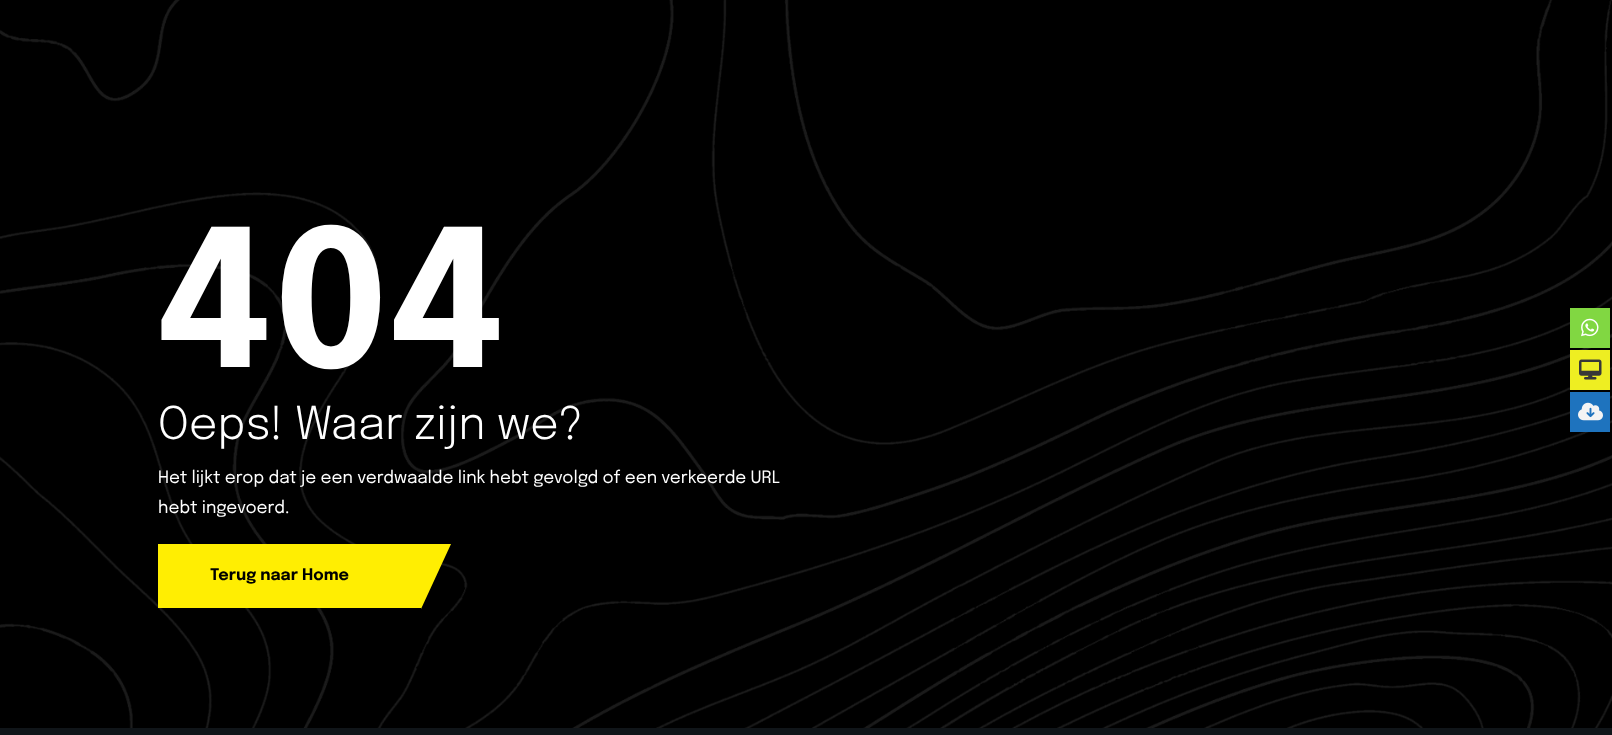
<?xml version="1.0" encoding="UTF-8"?>
<svg xmlns="http://www.w3.org/2000/svg" width="1612" height="735">
    <rect width="100%" height="100%" fill="#101519"/>
    <rect x="0" y="0" width="1612" height="728" fill="#000000"/>
    <image x="0" y="0" width="1612" height="728" href="img_01.png"/>
    <text x="158" y="367" font-family="Epilogue" font-size="190" font-weight="700" letter-spacing="2" fill="#FFFFFF">404</text>
    <text x="158" y="439" font-family="Epilogue" font-size="45" font-weight="300" fill="#FFFFFF">Oeps! Waar zijn we?</text>
    <text font-family="Epilogue" font-size="17" fill="#FFFFFF">
        <tspan x="158" y="483">Het lijkt erop dat je een verdwaalde link hebt gevolgd of een verkeerde URL</tspan>
        <tspan x="158" y="513">hebt ingevoerd.</tspan>
    </text>
    <rect x="158" y="544" width="263" height="64" fill="#FFEE02"/>
    <text x="210" y="580" font-family="Epilogue" font-size="16" font-weight="700" fill="#000000">Terug naar Home</text>
    <path d="M 421 544 H 451 L 421 609 Z" fill="#FFEE02"/>
    <rect x="1570" y="308" width="40" height="40" fill="#81D742"/>
    <image x="1581" y="318" width="18" height="19" href="img_02.png"/>
    <rect x="1570" y="350" width="40" height="40" fill="#EEEE22"/>
    <image x="1579" y="359" width="23" height="21" href="img_03.png"/>
    <rect x="1570" y="392" width="40" height="40" fill="#1E73BE"/>
    <image x="1578" y="402" width="25" height="19" href="img_04.png"/>
</svg>
